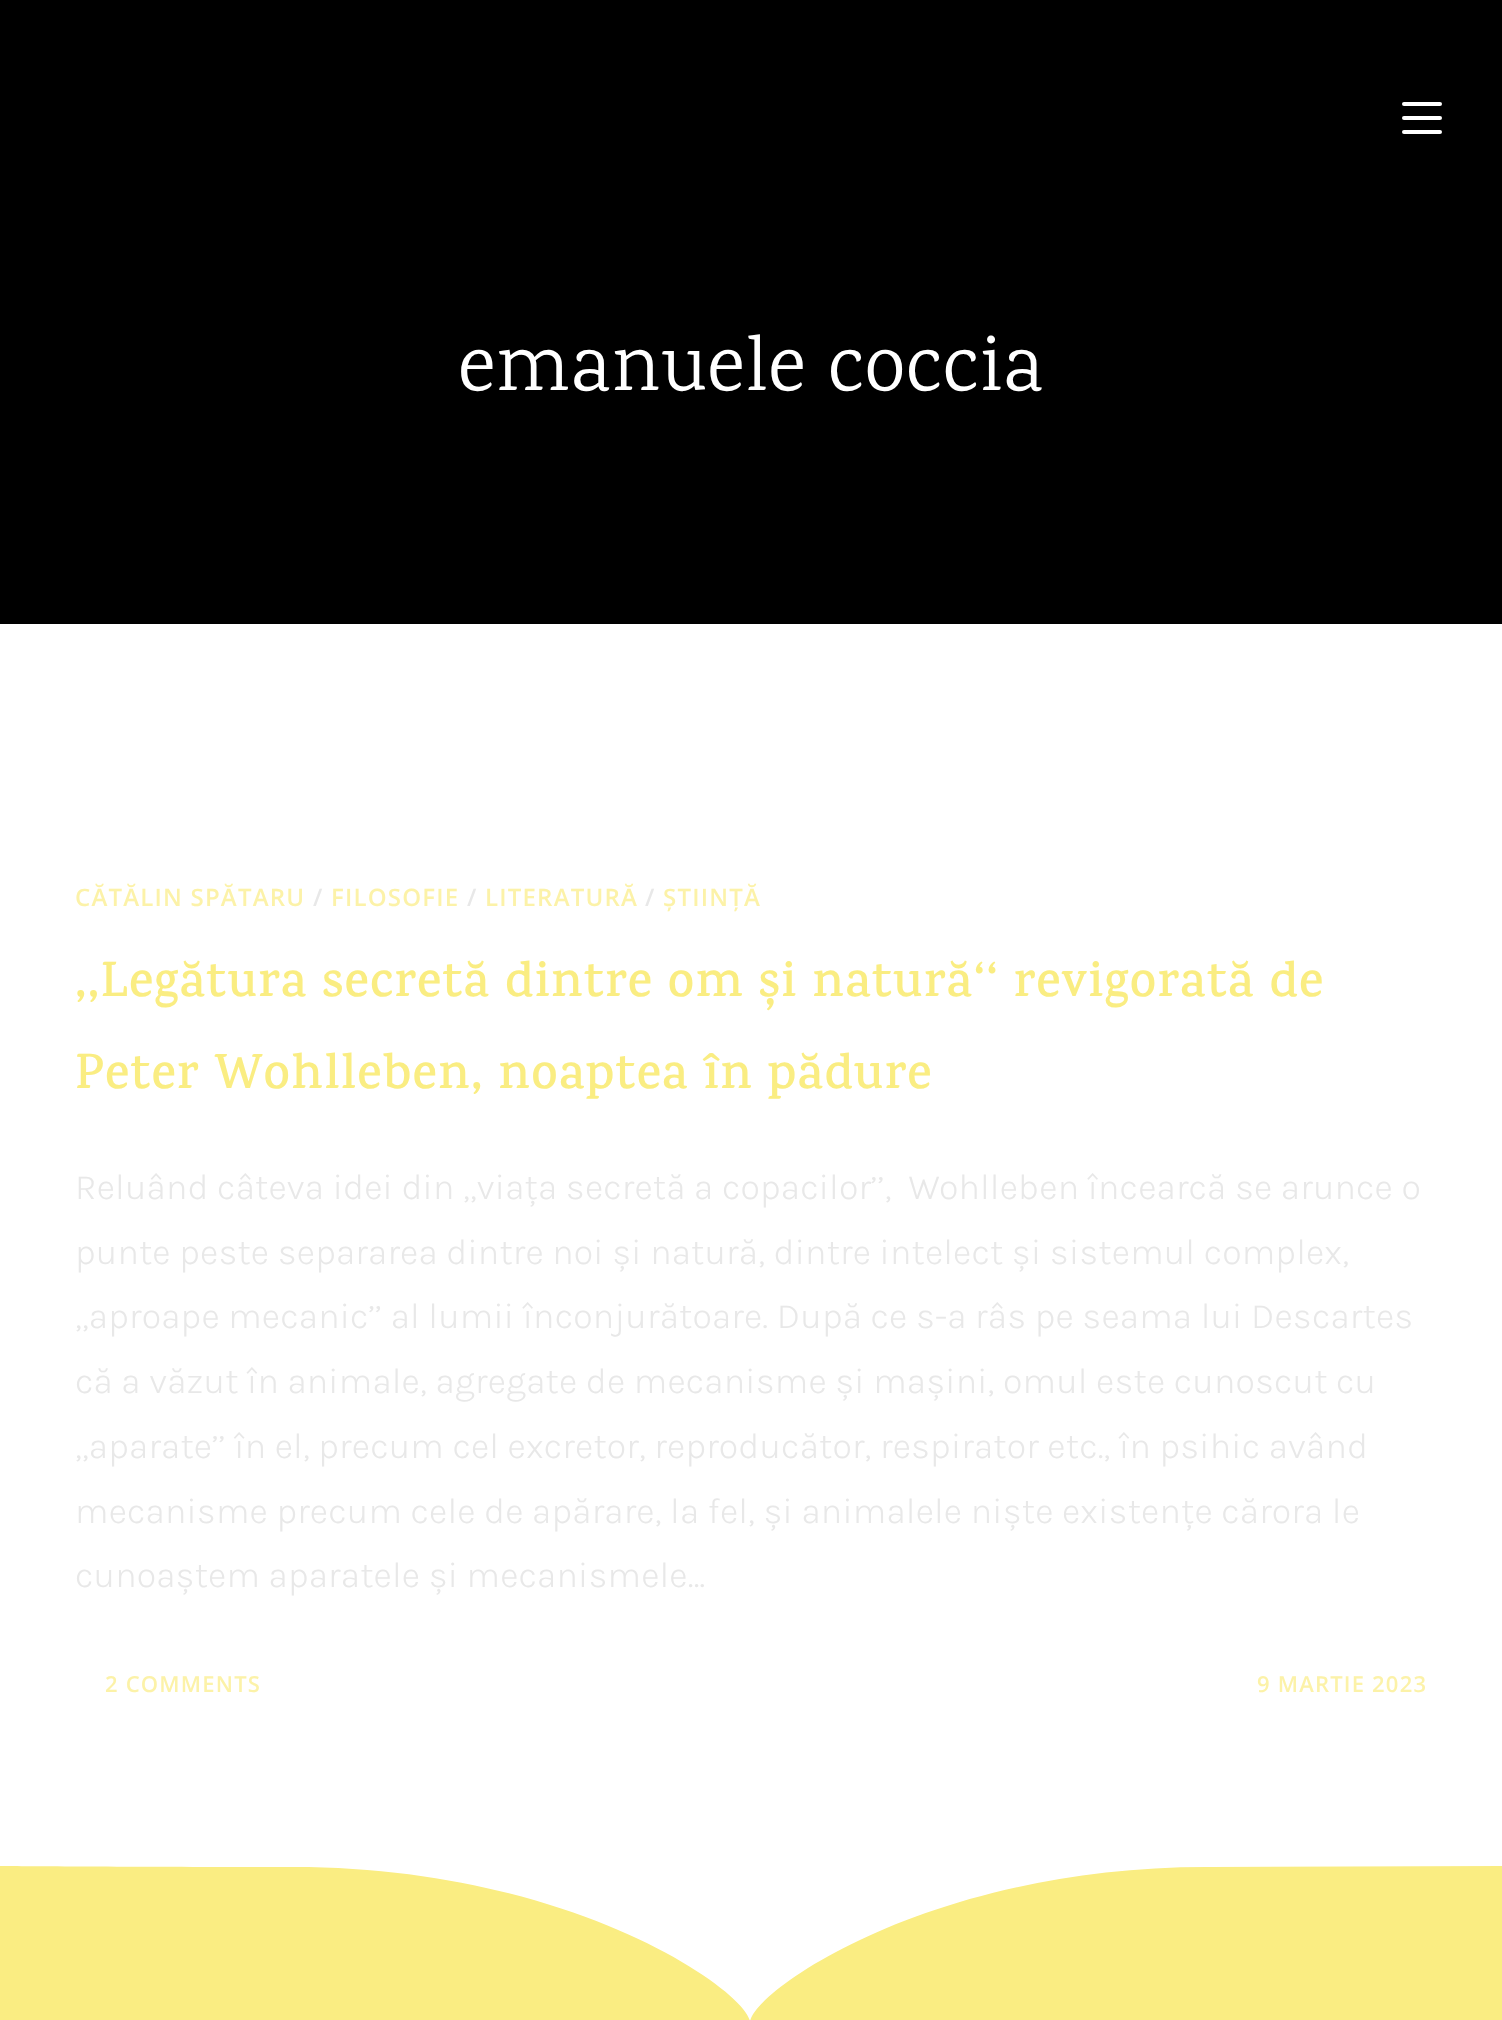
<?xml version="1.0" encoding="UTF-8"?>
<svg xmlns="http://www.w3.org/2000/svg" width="1502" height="2020">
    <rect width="100%" height="100%" fill="#FFFFFF"/>
    <rect x="0" y="0" width="1502" height="624" fill="#000000"/>
    <rect x="1402" y="116" width="40" height="4" rx="2" fill="#FFFFFF"/>
    <rect x="1402" y="102" width="40" height="4" rx="2" fill="#FFFFFF"/>
    <rect x="1402" y="130" width="40" height="4" rx="2" fill="#FFFFFF"/>
    <text x="458" y="390" font-family="Karma" font-size="80" letter-spacing="0.6" fill="#FFFFFF">emanuele coccia</text>
    <text x="75" y="906" font-family="Open Sans" font-size="24" font-weight="600" letter-spacing="1.2" fill="#FCF2A8">CĂTĂLIN SPĂTARU</text>
    <text x="313" y="906" font-family="Open Sans" font-size="24" font-weight="600" letter-spacing="1.2" fill="#E8E8E8">/</text>
    <text x="331" y="906" font-family="Open Sans" font-size="24" font-weight="600" letter-spacing="1.2" fill="#FCF2A8">FILOSOFIE</text>
    <text x="467" y="906" font-family="Open Sans" font-size="24" font-weight="600" letter-spacing="1.2" fill="#E8E8E8">/</text>
    <text x="485" y="906" font-family="Open Sans" font-size="24" font-weight="600" letter-spacing="1.2" fill="#FCF2A8">LITERATURĂ</text>
    <text x="645" y="906" font-family="Open Sans" font-size="24" font-weight="600" letter-spacing="1.2" fill="#E8E8E8">/</text>
    <text x="663" y="906" font-family="Open Sans" font-size="24" font-weight="600" letter-spacing="1.2" fill="#FCF2A8">ȘTIINȚĂ</text>
    <text font-family="Karma" font-size="50" font-weight="600" letter-spacing="1.2" fill="#FAED82">
        <tspan x="75" y="996">,,Legătura secretă dintre om și natură‘‘ revigorată de</tspan>
        <tspan x="75" y="1088">Peter Wohlleben, noaptea în pădure</tspan>
    </text>
    <text font-family="Karla" font-size="36" font-weight="300" letter-spacing="0.2" fill="#E8E8E8" xml:space="preserve"><tspan x="75" y="1199">Reluând câteva idei din ,,viața secretă a copacilor’’,  Wohlleben încearcă se arunce o</tspan><tspan x="75" y="1264">punte peste separarea dintre noi și natură, dintre intelect și sistemul complex,</tspan><tspan x="75" y="1328">,,aproape mecanic’’ al lumii înconjurătoare. După ce s-a râs pe seama lui Descartes</tspan><tspan x="75" y="1393">că a văzut în animale, agregate de mecanisme și mașini, omul este cunoscut cu</tspan><tspan x="75" y="1458">,,aparate’’ în el, precum cel excretor, reproducător, respirator etc., în psihic având</tspan><tspan x="75" y="1523">mecanisme precum cele de apărare, la fel, și animalele niște existențe cărora le</tspan><tspan x="75" y="1587">cunoaștem aparatele și mecanismele…</tspan></text>
    <text x="105" y="1692" font-family="Open Sans" font-size="22" font-weight="600" letter-spacing="1.2" fill="#FCF2A8">2 COMMENTS</text>
    <text x="1257" y="1692" font-family="Open Sans" font-size="22" font-weight="600" letter-spacing="1.2" fill="#FCF2A8">9 MARTIE 2023</text>
    <path d="M 1210 1867 C 929 1866 752 1992 750 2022 C 748 1992 571 1866 290 1867 C 118 1867 -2 1866 -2 1866 V 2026 L 1502 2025 V 1866 Z" fill="#FAED82"/>
</svg>
